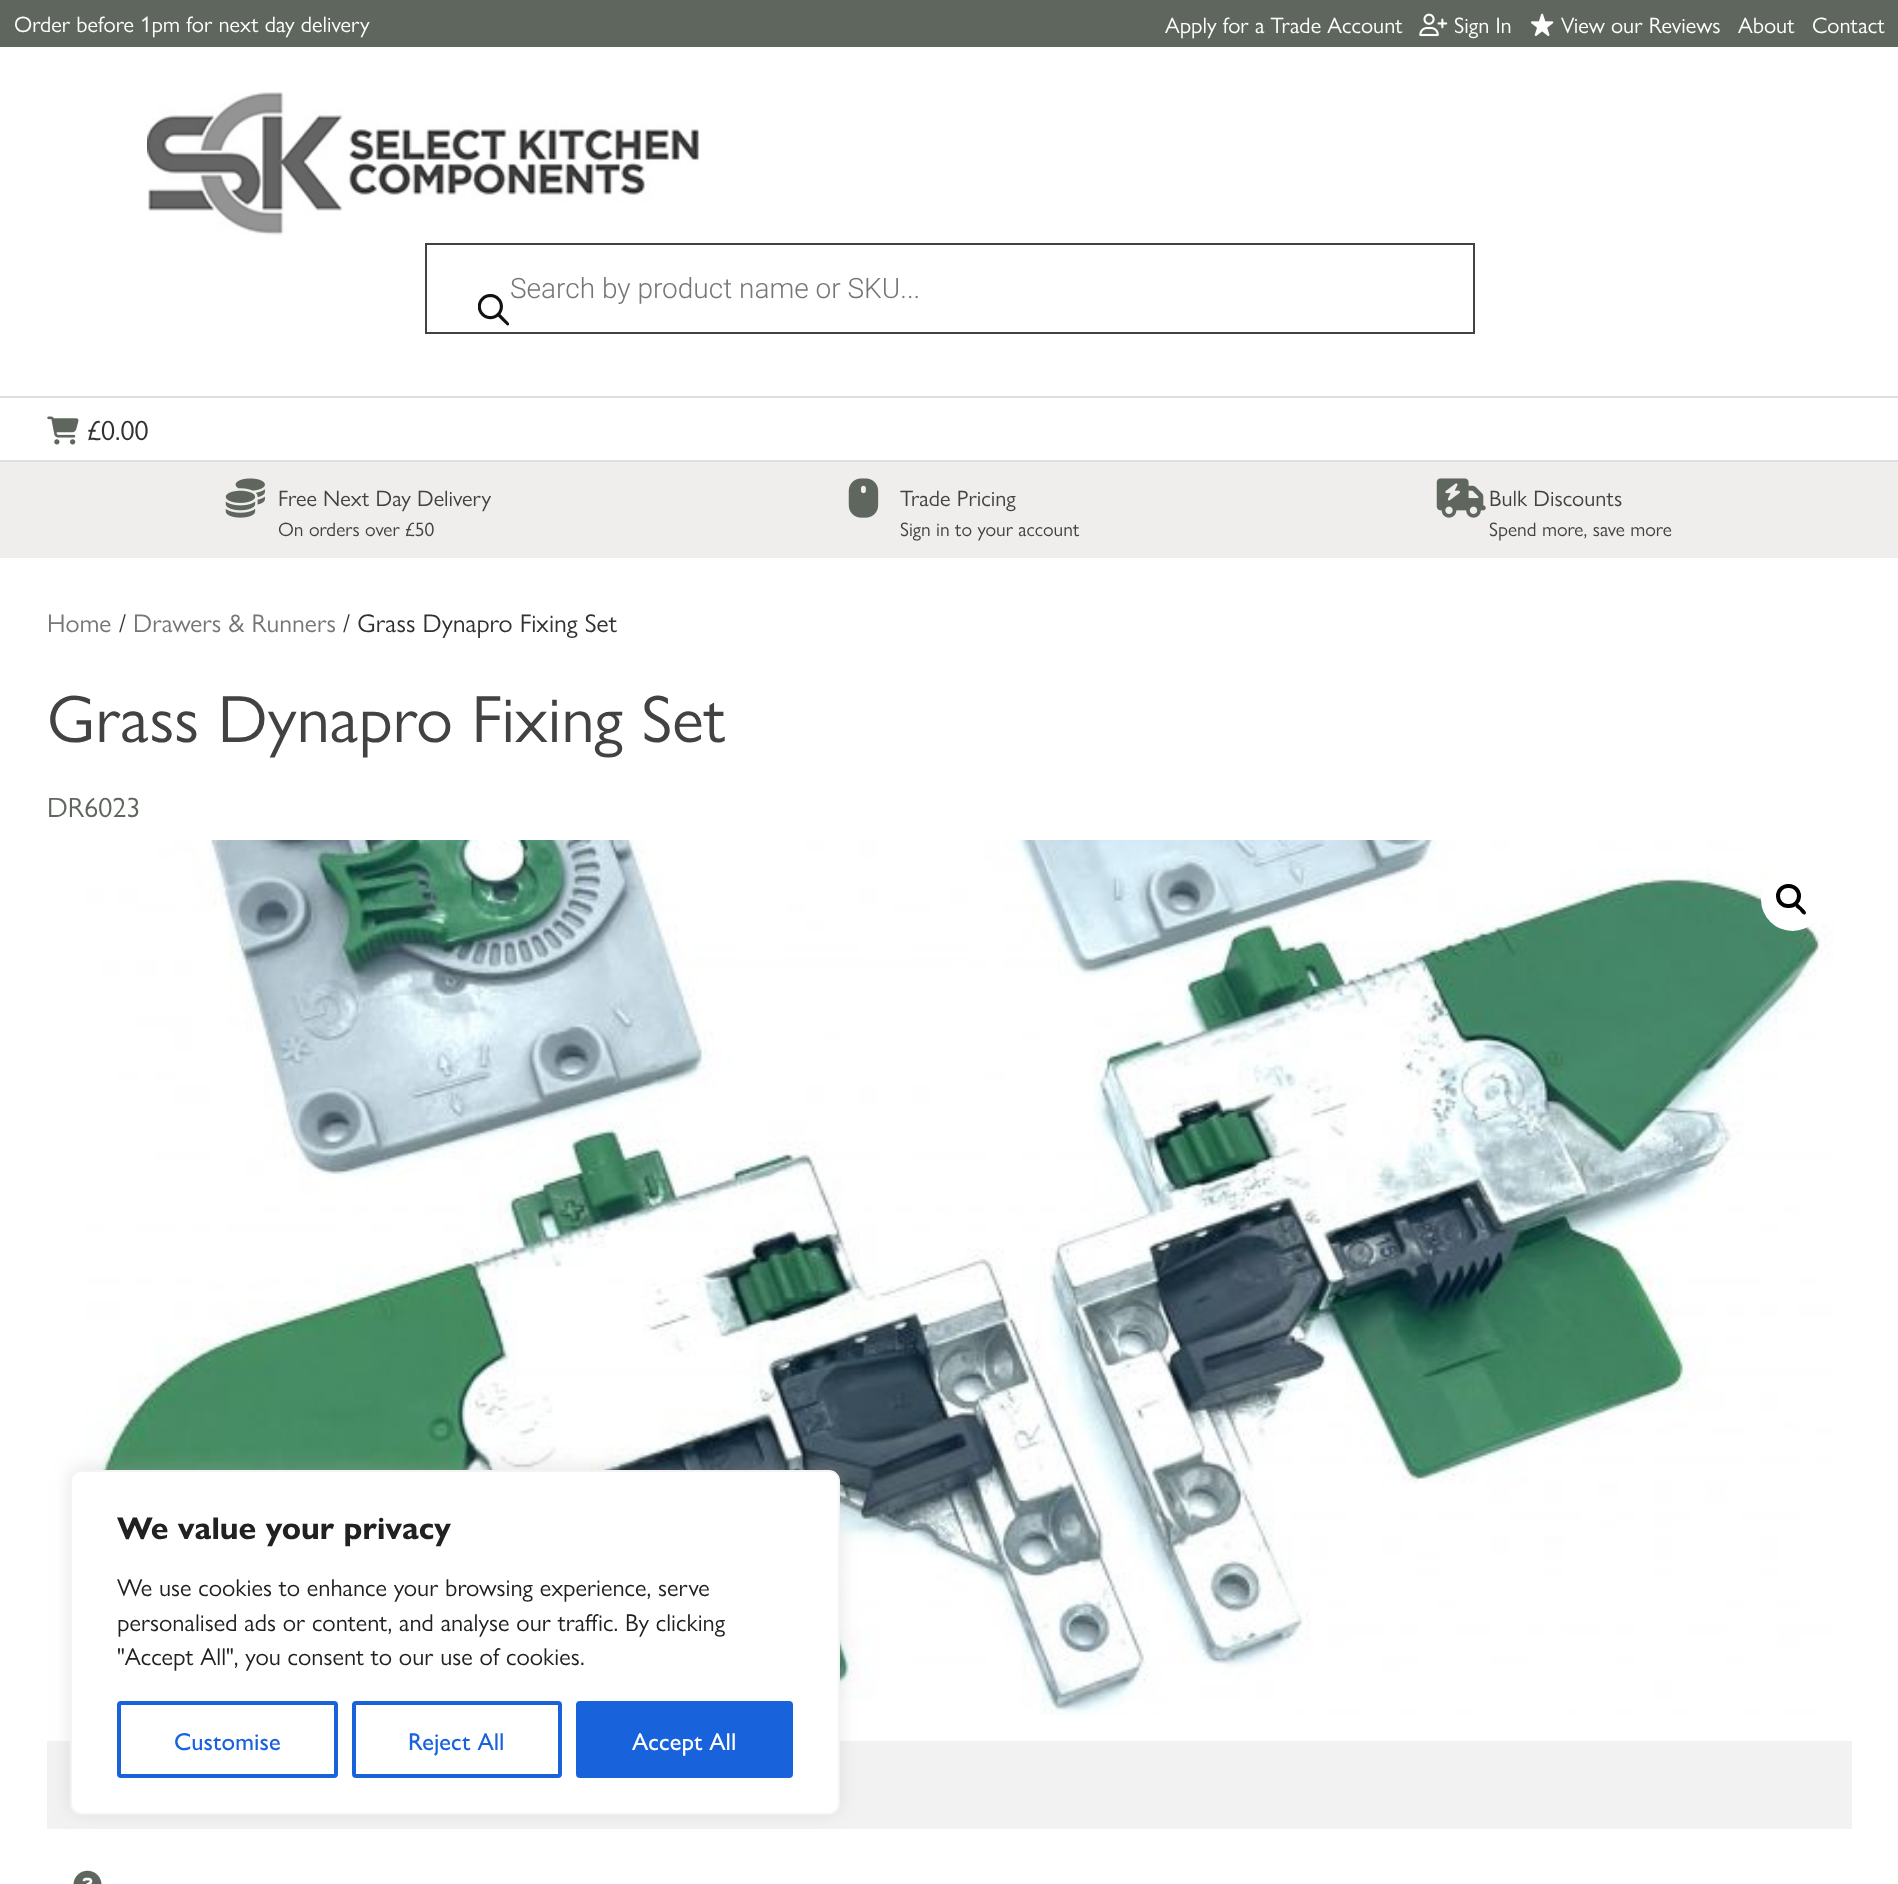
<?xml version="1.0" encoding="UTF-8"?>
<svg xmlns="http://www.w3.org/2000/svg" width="1898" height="1884">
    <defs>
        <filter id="blur1" x="-50%" y="-200%" width="200%" height="500%"><feGaussianBlur stdDeviation="9"/></filter>
    </defs>
    <rect width="100%" height="100%" fill="#FFFFFF"/>
    <rect x="0" y="0" width="1898" height="47" fill="#5F665E"/>
    <text x="14" y="32" font-family="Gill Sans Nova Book" font-size="22.4" fill="#FFFFFF">Order before 1pm for next day delivery</text>
    <text x="1165" y="33" font-family="Gill Sans Nova Book" font-size="22.4" fill="#FFFFFF">Apply for a Trade Account</text>
    <image x="1419" y="13" width="29" height="24" href="img_01.png"/>
    <text x="1454" y="33" font-family="Gill Sans Nova Book" font-size="22.4" fill="#FFFFFF">Sign In</text>
    <image x="1530" y="13" width="24" height="23" href="img_02.png"/>
    <text x="1561" y="33" font-family="Gill Sans Nova Book" font-size="22.4" fill="#FFFFFF">View our Reviews</text>
    <text x="1738" y="33" font-family="Gill Sans Nova Book" font-size="22.4" fill="#FFFFFF">About</text>
    <text x="1812" y="33" font-family="Gill Sans Nova Book" font-size="22.4" fill="#FFFFFF">Contact</text>
    <image x="147" y="92" width="553" height="143" href="img_03.png"/>
    <rect x="426" y="244" width="1048" height="89" fill="none" stroke="#424242" stroke-width="2"/>
    <text x="510" y="298" font-family="Roboto" font-size="28" font-weight="300" fill="#767676">Search by product name or SKU...</text>
    <image x="478" y="294" width="31" height="32" href="img_04.png"/>
    <rect x="0" y="396" width="1898" height="2" fill="#DEDEDE"/>
    <rect x="0" y="460" width="1898" height="2" fill="#DEDEDE"/>
    <image x="47" y="416" width="32" height="29" href="img_05.png"/>
    <text x="87" y="440" font-family="Gill Sans Nova Book" font-size="28" fill="#2F332E">£0.00</text>
    <rect x="0" y="462" width="1898" height="96" fill="#F0EEED"/>
    <image x="225" y="478" width="40" height="40" href="img_06.png"/>
    <text x="278" y="506" font-family="Gill Sans Nova Book" font-size="22.4" fill="#424242">Free Next Day Delivery</text>
    <text x="278" y="536" font-family="Gill Sans Nova Book" font-size="19.5" fill="#424242">On orders over £50</text>
    <image x="848" y="478" width="31" height="40" href="img_07.png"/>
    <text x="900" y="506" font-family="Gill Sans Nova Book" font-size="22.4" fill="#424242">Trade Pricing</text>
    <text x="900" y="536" font-family="Gill Sans Nova Book" font-size="19.5" fill="#424242">Sign in to your account</text>
    <image x="1436" y="478" width="50" height="40" href="img_08.png"/>
    <text x="1489" y="506" font-family="Gill Sans Nova Book" font-size="22.4" fill="#424242">Bulk Discounts</text>
    <text x="1489" y="536" font-family="Gill Sans Nova Book" font-size="19.5" fill="#424242">Spend more, save more</text>
    <text x="47" y="632" font-family="Gill Sans Nova Book" font-size="25.75" fill="#767676">Home</text>
    <text x="119" y="632" font-family="Gill Sans Nova Book" font-size="25.75" fill="#2F332E">/</text>
    <text x="133" y="632" font-family="Gill Sans Nova Book" font-size="25.75" fill="#767676">Drawers &amp; Runners</text>
    <text x="343" y="632" font-family="Gill Sans Nova Book" font-size="25.75" fill="#2F332E">/ Grass Dynapro Fixing Set</text>
    <text x="47" y="742" font-family="Gill Sans Nova Book" font-size="67.25" fill="#424242">Grass Dynapro Fixing Set</text>
    <text x="47" y="817" font-family="Gill Sans Nova Book" font-size="28" fill="#5F665E">DR6023</text>
    <image x="84" y="840" width="1749" height="875" href="img_09.png"/>
    <circle cx="1792.5" cy="899.5" r="31.5" fill="#FFFFFF"/>
    <rect x="1778" y="886" width="21" height="20" rx="10" fill="none" stroke="#000000" stroke-width="4"/>
    <path d="M 1795.5 904 C 1797.5 902 1800.5 906.5 1802 907.5 C 1803 909 1807.5 912 1805.5 914 C 1803.5 916 1800.5 911.5 1799.5 910 C 1798 909 1793.5 906 1795.5 904 Z" fill="#000000"/>
    <rect x="47" y="1741" width="1805" height="88" fill="#F2F2F2"/>
    <image x="73" y="1870" width="29" height="14" href="img_10.png"/>
    <rect x="70" y="1468" width="770" height="345" rx="11" fill="#ACABAB" fill-opacity="0.3" filter="url(#blur1)"/>
    <rect x="71" y="1471" width="768" height="343" rx="10" fill="#FFFFFF" stroke="#F4F4F4" stroke-width="2"/>
    <text x="117" y="1539" font-family="Gill Sans Nova Book" font-size="31.5" font-weight="700" fill="#212121">We value your privacy</text>
    <text font-family="Gill Sans Nova Book" font-size="24.5" fill="#212121">
        <tspan x="117" y="1596">We use cookies to enhance your browsing experience, serve</tspan>
        <tspan x="117" y="1631">personalised ads or content, and analyse our traffic. By clicking</tspan>
        <tspan x="117" y="1665">"Accept All", you consent to our use of cookies.</tspan>
    </text>
    <rect x="119" y="1703" width="217" height="73" rx="2" fill="none" stroke="#1863DC" stroke-width="4"/>
    <text x="174" y="1750" font-family="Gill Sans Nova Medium" font-size="24.5" font-weight="500" fill="#1863DC">Customise</text>
    <rect x="354" y="1703" width="206" height="73" rx="2" fill="none" stroke="#1863DC" stroke-width="4"/>
    <text x="408" y="1750" font-family="Gill Sans Nova Medium" font-size="24.5" font-weight="500" fill="#1863DC">Reject All</text>
    <rect x="578" y="1703" width="213" height="73" rx="2" fill="#1863DC" stroke="#1863DC" stroke-width="4"/>
    <text x="632" y="1750" font-family="Gill Sans Nova Medium" font-size="24.5" font-weight="500" fill="#FFFFFF">Accept All</text>
</svg>
